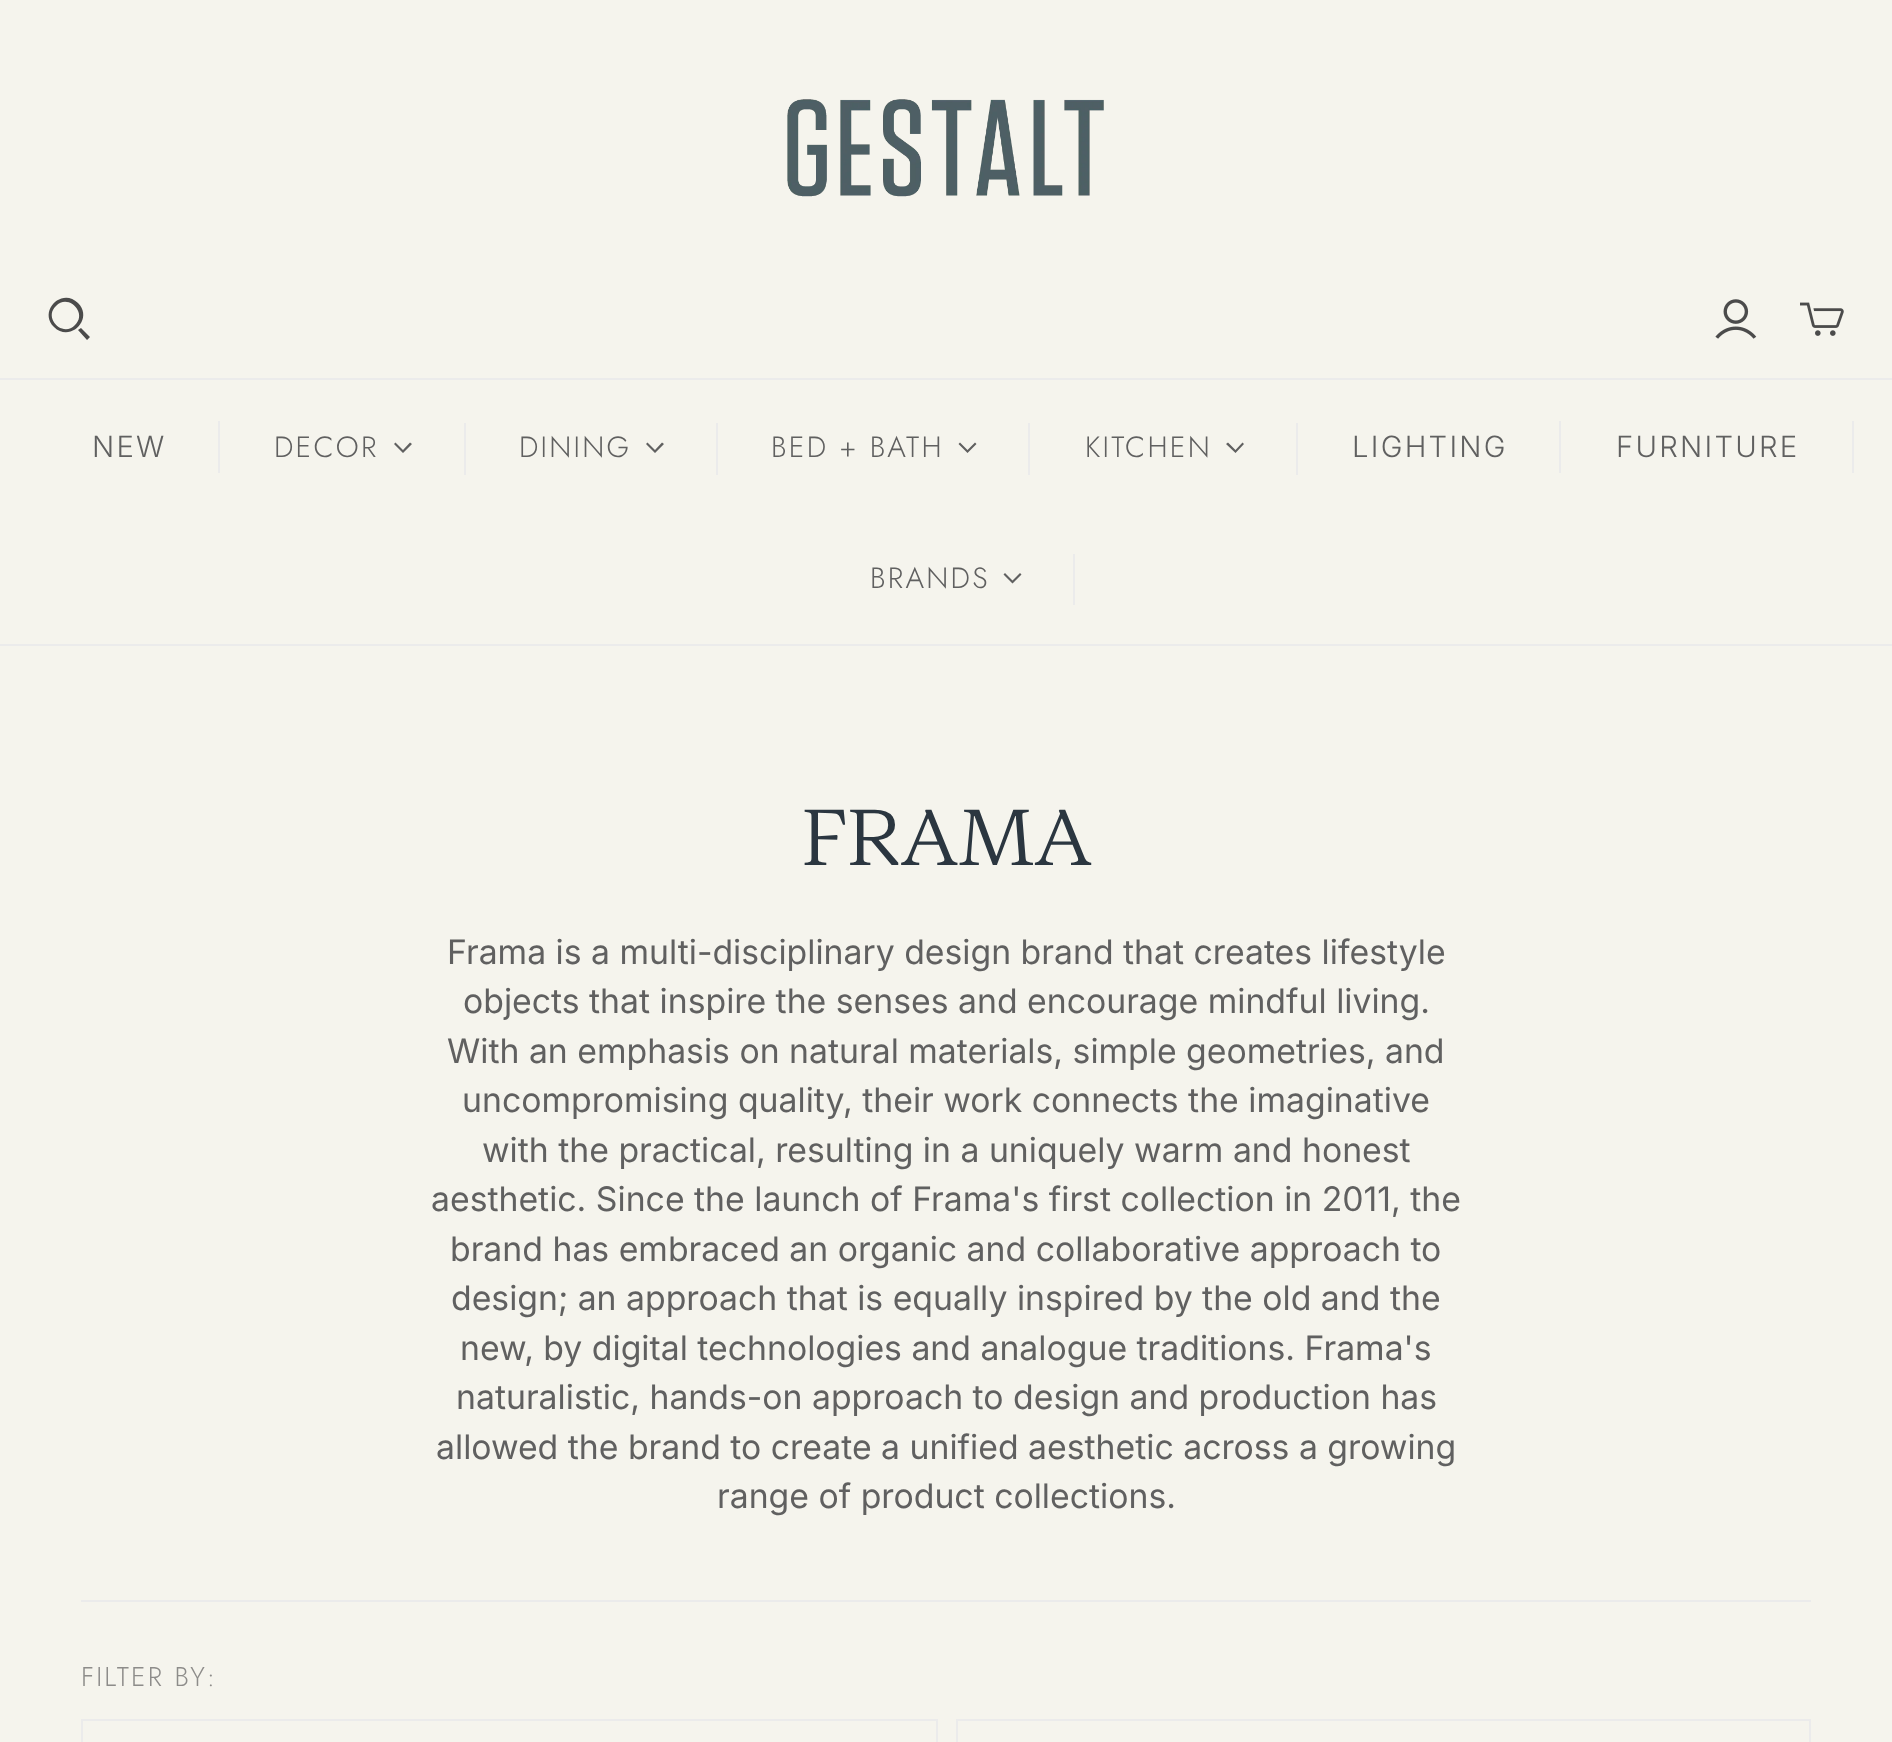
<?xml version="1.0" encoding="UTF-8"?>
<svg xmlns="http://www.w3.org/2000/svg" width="1892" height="1742">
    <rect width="100%" height="100%" fill="#F5F4ED"/>
    <image x="787" y="99" width="317" height="98" href="img_01.png"/>
    <path d="M 56 306 C 43 318 63 338 75 325 C 88 313 68 293 56 306 Z M 54 327 C 38 311 62 287 78 303 C 94 319 70 343 54 327 Z M 87 340 L 78 330 L 81 328 L 90 337 Z" fill="#4B4B4B" fill-rule="evenodd"/>
    <image x="1715" y="299" width="42" height="40" href="img_02.png"/>
    <image x="1800" y="302" width="44" height="34" href="img_03.png"/>
    <rect x="0" y="378" width="1892" height="2" fill="#EBEBEB"/>
    <rect x="0" y="644" width="1892" height="2" fill="#EBEBEB"/>
    <text x="92" y="457" font-family="Inter" font-size="29.25" font-weight="300" letter-spacing="2.25" fill="#606060">NEW</text>
    <rect x="218" y="421" width="2" height="52" fill="#EBEBEB"/>
    <text x="274" y="457" font-family="Jost" font-size="29.25" font-weight="300" letter-spacing="2.25" fill="#606060">DECOR</text>
    <path d="M 394 444 L 395.5 442.5 L 403 450 L 410 442.5 L 412 444 L 403 453 Z" fill="#606060"/>
    <rect x="464" y="423" width="2" height="52" fill="#EBEBEB"/>
    <text x="519" y="457" font-family="Jost" font-size="29.25" font-weight="300" letter-spacing="2.25" fill="#606060">DINING</text>
    <path d="M 646 444 L 647.5 442.5 L 655 450 L 662 442.5 L 664 444 L 655 453 Z" fill="#606060"/>
    <rect x="716" y="423" width="2" height="52" fill="#EBEBEB"/>
    <text x="771" y="457" font-family="Jost" font-size="29.25" font-weight="300" letter-spacing="2.25" fill="#606060">BED + BATH</text>
    <path d="M 958.5 444 L 960 442.5 L 967.5 450 L 975 442.5 L 976.5 444 L 967.5 453 Z" fill="#606060"/>
    <rect x="1028" y="423" width="2" height="52" fill="#EBEBEB"/>
    <text x="1085" y="457" font-family="Jost" font-size="29.25" font-weight="300" letter-spacing="2.25" fill="#606060">KITCHEN</text>
    <path d="M 1226 444 L 1228 442.5 L 1235.5 450 L 1242.5 442.5 L 1244 444 L 1235.5 453 Z" fill="#606060"/>
    <rect x="1296" y="423" width="2" height="52" fill="#EBEBEB"/>
    <text x="1352" y="457" font-family="Inter" font-size="29.25" font-weight="300" letter-spacing="2.25" fill="#606060">LIGHTING</text>
    <rect x="1559" y="421" width="2" height="52" fill="#EBEBEB"/>
    <text x="1616" y="457" font-family="Inter" font-size="29.25" font-weight="300" letter-spacing="2.25" fill="#606060">FURNITURE</text>
    <rect x="1852" y="421" width="2" height="52" fill="#EBEBEB"/>
    <text x="870" y="588" font-family="Jost" font-size="29.25" font-weight="300" letter-spacing="2.25" fill="#606060">BRANDS</text>
    <path d="M 1003.5 574.5 L 1005 573 L 1012.5 580.5 L 1020 573 L 1021.5 574.5 L 1012.5 583.5 Z" fill="#606060"/>
    <rect x="1073" y="554" width="2" height="51" fill="#EBEBEB"/>
    <rect x="81" y="1600" width="1730" height="2" fill="#EBEBEB"/>
    <text x="801" y="865" font-family="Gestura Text" font-size="79" font-weight="300" fill="#2B3640">FRAMA</text>
    <text x="447" y="964" font-family="Inter" font-size="33.75" fill="#606060">Frama is a multi-disciplinary design brand that creates lifestyle</text>
    <text x="463" y="1013" font-family="Inter" font-size="33.75" fill="#606060">objects that inspire the senses and encourage mindful living.</text>
    <text x="447" y="1063" font-family="Inter" font-size="33.75" fill="#606060">With an emphasis on natural materials, simple geometries, and</text>
    <text x="462" y="1112" font-family="Inter" font-size="33.75" fill="#606060">uncompromising quality, their work connects the imaginative</text>
    <text x="482" y="1162" font-family="Inter" font-size="33.75" fill="#606060">with the practical, resulting in a uniquely warm and honest</text>
    <text x="431" y="1211" font-family="Inter" font-size="33.75" fill="#606060">aesthetic. Since the launch of Frama's first collection in 2011, the</text>
    <text x="450" y="1261" font-family="Inter" font-size="33.75" fill="#606060">brand has embraced an organic and collaborative approach to</text>
    <text x="451" y="1310" font-family="Inter" font-size="33.75" fill="#606060">design; an approach that is equally inspired by the old and the</text>
    <text x="460" y="1360" font-family="Inter" font-size="33.75" fill="#606060">new, by digital technologies and analogue traditions. Frama's</text>
    <text x="456" y="1409" font-family="Inter" font-size="33.75" fill="#606060">naturalistic, hands-on approach to design and production has</text>
    <text x="436" y="1459" font-family="Inter" font-size="33.75" fill="#606060">allowed the brand to create a unified aesthetic across a growing</text>
    <text x="717" y="1508" font-family="Inter" font-size="33.75" fill="#606060">range of product collections.</text>
    <text x="81" y="1686" font-family="Jost" font-size="27" font-weight="300" letter-spacing="2.25" fill="#8D8C8A">FILTER BY:</text>
    <rect x="82" y="1720" width="855" height="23" fill="none" stroke="#EBEBEB" stroke-width="2"/>
    <rect x="957" y="1720" width="853" height="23" fill="none" stroke="#EBEBEB" stroke-width="2"/>
</svg>
